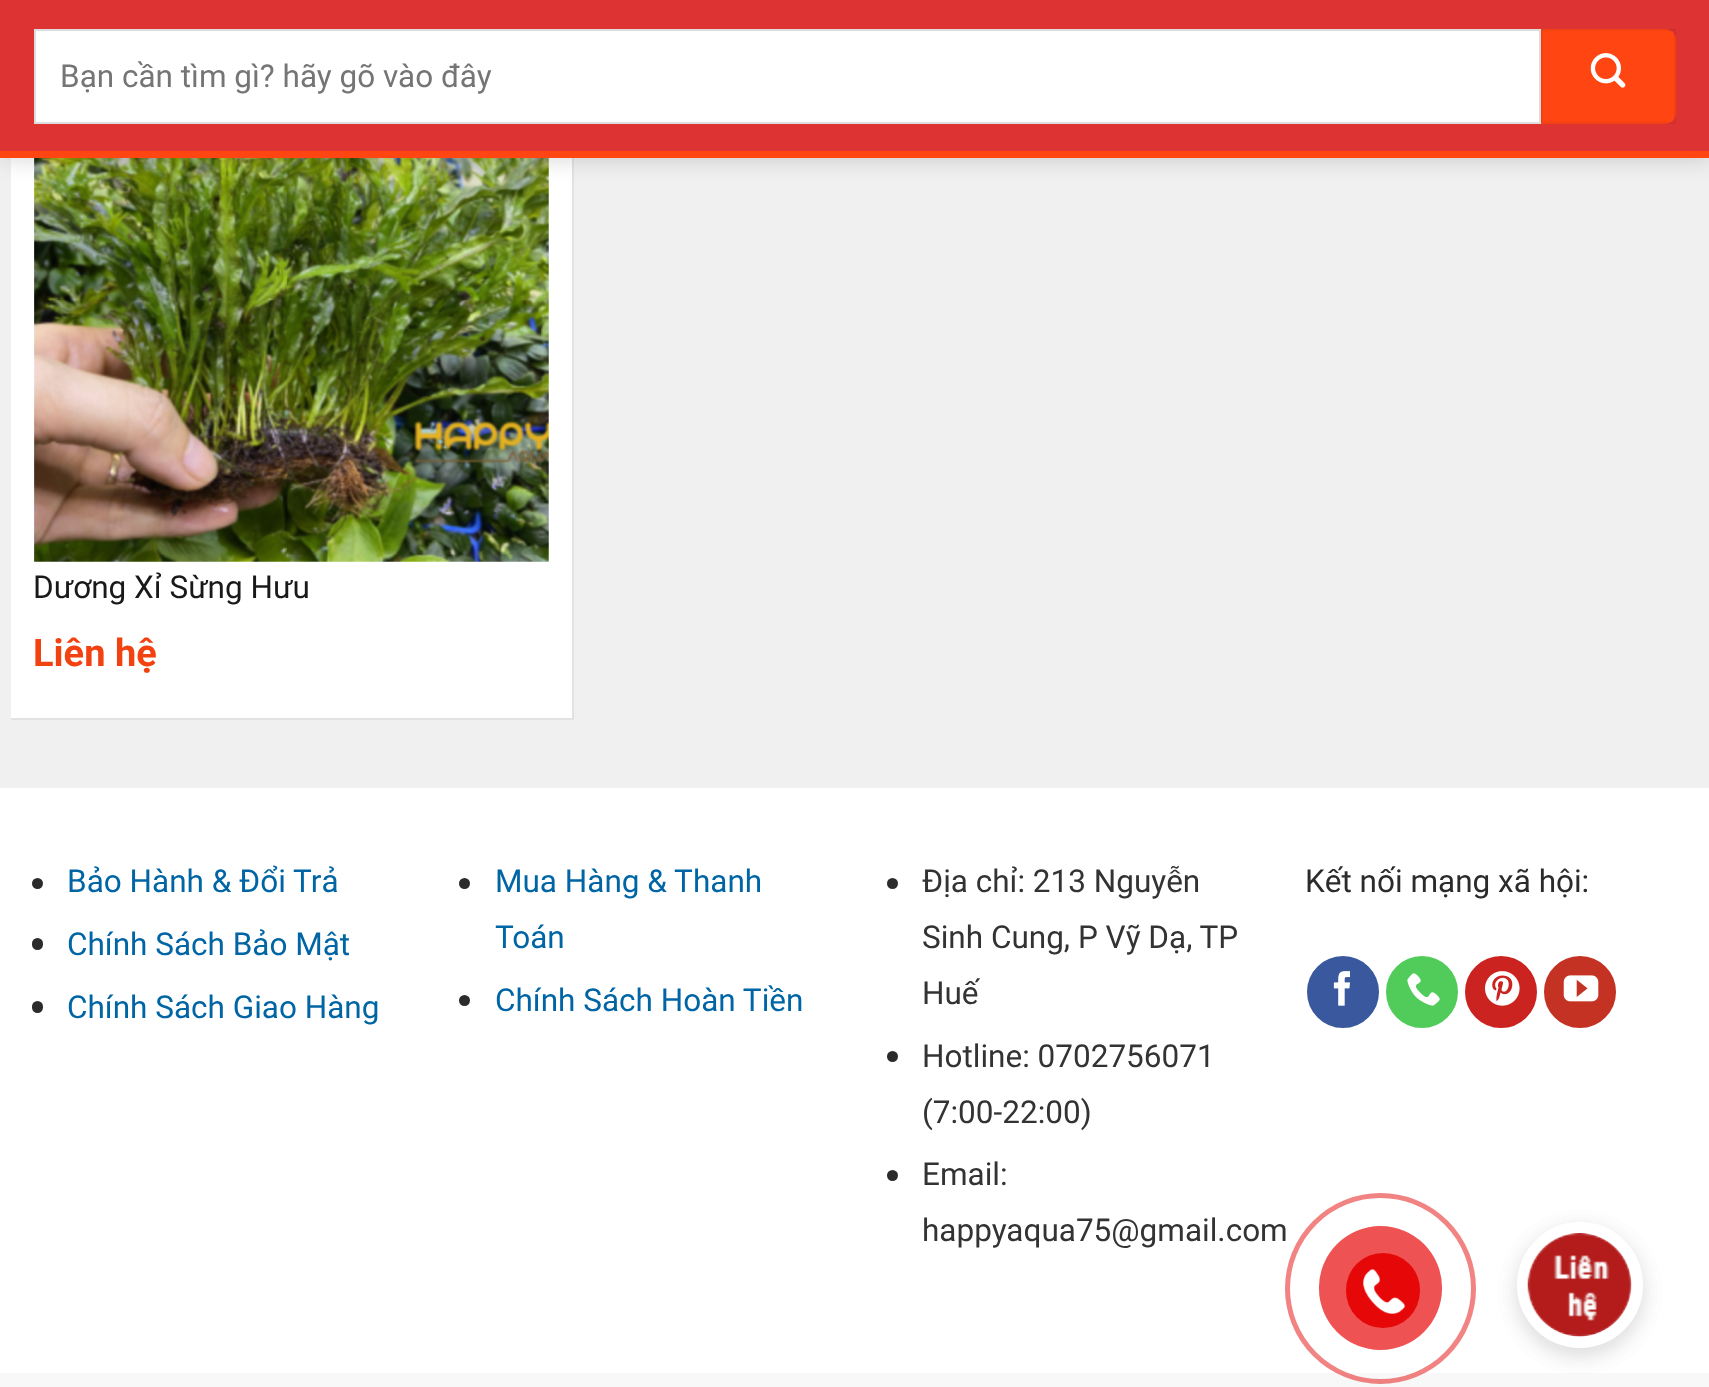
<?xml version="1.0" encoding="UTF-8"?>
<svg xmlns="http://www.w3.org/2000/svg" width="1709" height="1387">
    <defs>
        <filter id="blur1" x="-50%" y="-200%" width="200%" height="500%"><feGaussianBlur stdDeviation="11"/></filter>
    </defs>
    <rect width="100%" height="100%" fill="#FFFFFF"/>
    <rect x="0" y="158" width="1709" height="630" fill="#F0F0F0"/>
    <rect x="11" y="158" width="561" height="560" fill="#FFFFFF"/>
    <rect x="572" y="158" width="2" height="562" fill="#E2E2E2"/>
    <image x="34" y="158" width="515" height="404" href="img_02.png"/>
    <rect x="2" y="2" width="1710" height="158" fill="#000000" fill-opacity="0.15" filter="url(#blur1)"/>
    <rect x="0" y="0" width="1709" height="151" fill="#DD3333"/>
    <rect x="0" y="151" width="1709" height="7" fill="#FF4612"/>
    <rect x="35" y="30" width="1505" height="93" fill="#FFFFFF" stroke="#DDDDDD" stroke-width="2"/>
    <text x="60" y="87" font-family="Roboto" font-size="31.5" fill="#757575">Bạn cần tìm gì? hãy gõ vào đây</text>
    <path d="M 1541 29 H 1665 C 1671 29 1676 34 1676 40 V 113 C 1676 119 1671 124 1665 124 H 1541 Z" fill="#FF4612"/>
    <rect x="1542" y="30" width="133" height="93" fill="none" stroke="#000000" stroke-opacity="0.05" stroke-width="2"/>
    <image x="1590" y="53" width="36" height="35" href="img_01.png"/>
    <rect x="11" y="718" width="563" height="2" fill="#E2E2E2"/>
    <text x="33" y="598" font-family="Roboto" font-size="31.5" fill="#191919">Dương Xỉ Sừng Hưu</text>
    <text x="33" y="666" font-family="Roboto" font-size="38" font-weight="700" fill="#F24211">Liên hệ</text>
    <circle cx="37.5" cy="883.5" r="5.5" fill="#2B2B2B"/>
    <text x="67" y="892" font-family="Roboto" font-size="31.5" fill="#0065A4">Bảo Hành &amp; Đổi Trả</text>
    <rect x="32" y="938" width="11" height="12" rx="5.5" fill="#2B2B2B"/>
    <text x="67" y="955" font-family="Roboto" font-size="31.5" fill="#0065A4">Chính Sách Bảo Mật</text>
    <rect x="32" y="1001" width="11" height="12" rx="5.5" fill="#2B2B2B"/>
    <text x="67" y="1018" font-family="Roboto" font-size="31.5" fill="#0065A4">Chính Sách Giao Hàng</text>
    <circle cx="464.5" cy="883.5" r="5.5" fill="#2B2B2B"/>
    <text font-family="Roboto" font-size="31.5" fill="#0065A4">
        <tspan x="495" y="892">Mua Hàng &amp; Thanh</tspan>
        <tspan x="495" y="948">Toán</tspan>
    </text>
    <circle cx="464.5" cy="1000.5" r="5.5" fill="#2B2B2B"/>
    <text x="495" y="1011" font-family="Roboto" font-size="31.5" fill="#0065A4">Chính Sách Hoàn Tiền</text>
    <circle cx="892.5" cy="883.5" r="5.5" fill="#2B2B2B"/>
    <text font-family="Roboto" font-size="31.5" fill="#333333">
        <tspan x="922" y="892">Địa chỉ: 213 Nguyễn</tspan>
        <tspan x="922" y="948">Sinh Cung, P Vỹ Dạ, TP</tspan>
        <tspan x="922" y="1004">Huế</tspan>
    </text>
    <circle cx="892.5" cy="1056.5" r="5.5" fill="#2B2B2B"/>
    <text font-family="Roboto" font-size="31.5" fill="#333333">
        <tspan x="922" y="1067">Hotline: 0702756071</tspan>
        <tspan x="922" y="1123">(7:00-22:00)</tspan>
    </text>
    <circle cx="892.5" cy="1175.5" r="5.5" fill="#2B2B2B"/>
    <text font-family="Roboto" font-size="31.5" fill="#333333">
        <tspan x="922" y="1185">Email:</tspan>
        <tspan x="922" y="1241">happyaqua75@gmail.com</tspan>
    </text>
    <text x="1305" y="892" font-family="Roboto" font-size="31.5" fill="#2B2B2B">Kết nối mạng xã hội:</text>
    <circle cx="1343" cy="992" r="35" fill="#3A589D" stroke="#3A589D" stroke-width="2"/>
    <image x="1333" y="971" width="17" height="35" href="img_03.png"/>
    <circle cx="1422" cy="992" r="35" fill="#51CB5A" stroke="#51CB5A" stroke-width="2"/>
    <image x="1407" y="973" width="33" height="33" href="img_04.png"/>
    <circle cx="1501" cy="992" r="35" fill="#CB2320" stroke="#CB2320" stroke-width="2"/>
    <image x="1485" y="971" width="35" height="35" href="img_05.png"/>
    <circle cx="1580" cy="992" r="35" fill="#C33223" stroke="#C33223" stroke-width="2"/>
    <image x="1563" y="975" width="36" height="27" href="img_06.png"/>
    <rect x="0" y="1373" width="1709" height="14" fill="#F8F8F8"/>
    <circle cx="1380.5" cy="1288.5" r="93" fill="none" stroke="#E60808" stroke-opacity="0.5" stroke-width="5"/>
    <rect x="1319" y="1226" width="123" height="124" rx="61.5" fill="#EE5252"/>
    <rect x="1346" y="1253" width="74" height="75" rx="37" fill="#E60808"/>
    <image x="1362" y="1269" width="44" height="45" href="img_07.png"/>
    <rect x="1517" y="1229" width="126" height="126" rx="63" fill="#000000" fill-opacity="0.08" filter="url(#blur1)"/>
    <rect x="1517" y="1229" width="126" height="126" rx="63" fill="#000000" fill-opacity="0.08" filter="url(#blur1)"/>
    <circle cx="1580" cy="1285" r="57.5" fill="#FFFFFF" stroke="#FFFFFF" stroke-width="11"/>
    <image x="1527" y="1233" width="105" height="104" href="img_08.png"/>
</svg>
